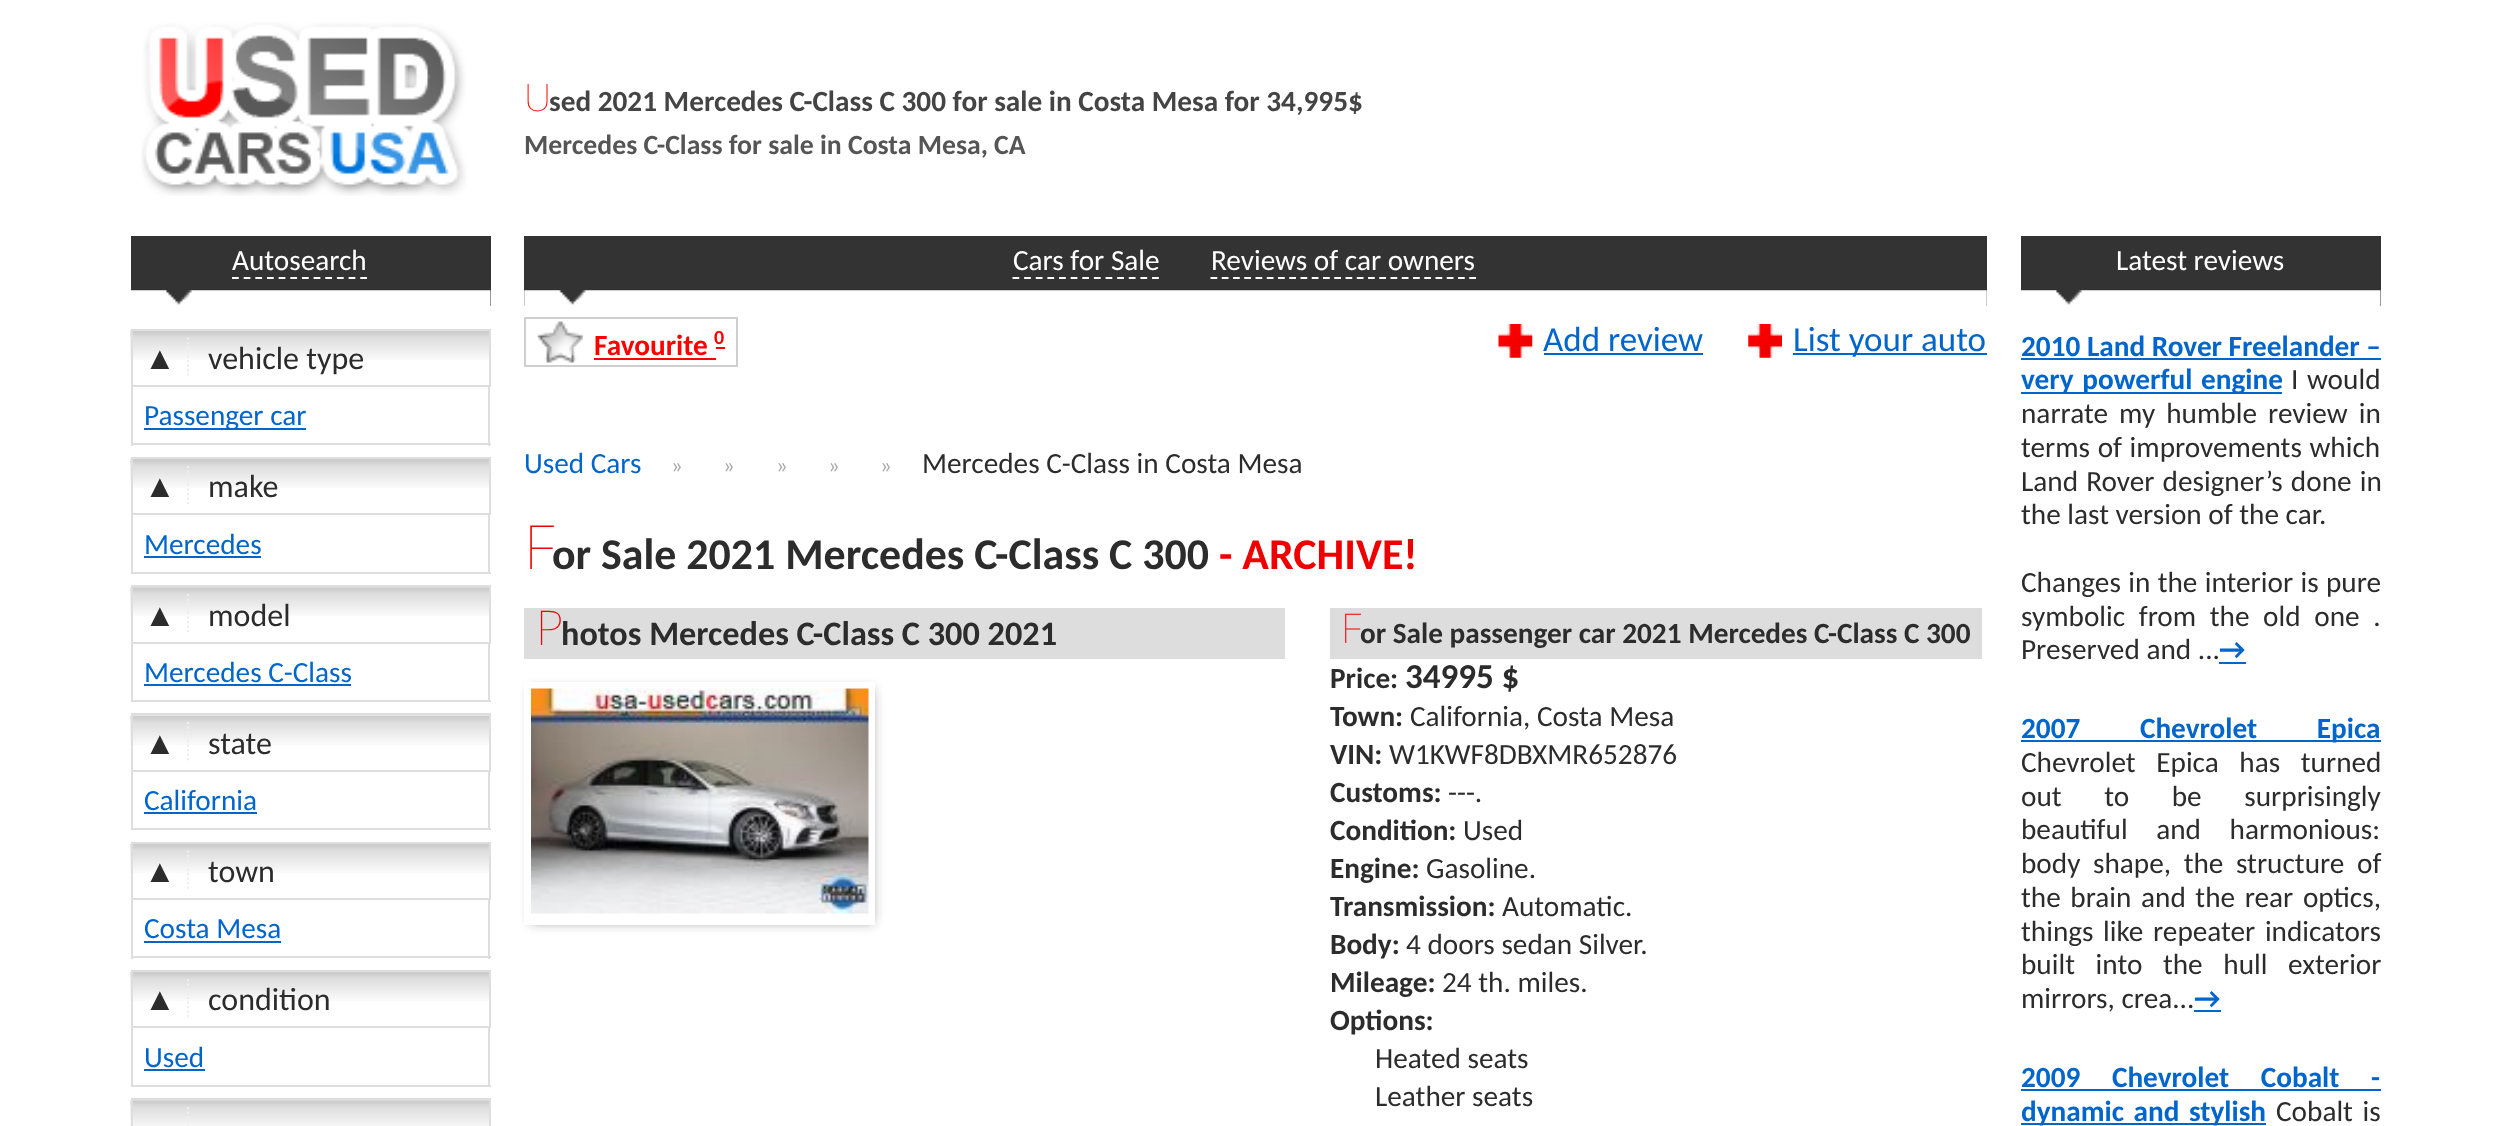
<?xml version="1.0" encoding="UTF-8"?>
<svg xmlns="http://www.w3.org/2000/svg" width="2509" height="1126">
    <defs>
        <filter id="blur1" x="-50%" y="-200%" width="200%" height="500%"><feGaussianBlur stdDeviation="5.5"/></filter>
    </defs>
    <rect width="100%" height="100%" fill="#FFFFFF"/>
    <image x="141" y="22" width="326" height="174" href="img_01.png"/>
    <text x="524" y="111" font-family="Noto Sans" font-size="38" font-weight="100" fill="#FF0000">U</text>
    <text x="549" y="111" font-family="Carlito" font-size="29.25" font-weight="700" fill="#444444">sed 2021 Mercedes C-Class C 300 for sale in Costa Mesa for 34,995$</text>
    <text x="524" y="154" font-family="Carlito" font-size="27.75" font-weight="700" fill="#555555">Mercedes C-Class for sale in Costa Mesa, CA</text>
    <rect x="131" y="236" width="360" height="70" fill="#333333"/>
    <image x="131" y="290" width="360" height="16" href="img_02.png"/>
    <text x="232" y="270" font-family="Carlito" font-size="29.25" fill="#FFFFFF">Autosearch</text>
    <path d="M 232 278 H 367" fill="none" stroke="#FFFFFF" stroke-width="2.2" stroke-dasharray="6.75 4.91"/>
    <image x="130" y="330" width="359" height="30" href="img_03.png"/>
    <rect x="132" y="330" width="358" height="56" fill="none" stroke="#DEDEDE" stroke-width="2"/>
    <text x="144" y="369" font-family="Liberation Sans" font-size="32" fill="#2C2C2C">▲</text>
    <path d="M 188 337.5 V 378" fill="none" stroke="#EEEEEE" stroke-width="2.2" stroke-dasharray="2.25 2.25"/>
    <text x="208" y="369" font-family="Carlito" font-size="32" fill="#2C2C2C">vehicle type</text>
    <rect x="488" y="387" width="2" height="59" fill="#DEDEDE"/>
    <rect x="131" y="443" width="360" height="2" fill="#DEDEDE"/>
    <rect x="131" y="387" width="2" height="59" fill="#DEDEDE"/>
    <rect x="144" y="428" width="162" height="2" fill="#0066CC"/>
    <text x="144" y="425" font-family="Carlito" font-size="29.25" fill="#0066CC">Passenger car</text>
    <image x="130" y="459" width="359" height="29" href="img_04.png"/>
    <rect x="132" y="458" width="358" height="56" fill="none" stroke="#DEDEDE" stroke-width="2"/>
    <text x="144" y="497" font-family="Liberation Sans" font-size="32" fill="#2C2C2C">▲</text>
    <path d="M 188 466 V 506" fill="none" stroke="#EEEEEE" stroke-width="2.2" stroke-dasharray="2.25 2.25"/>
    <text x="208" y="497" font-family="Carlito" font-size="32" fill="#2C2C2C">make</text>
    <rect x="488" y="515" width="2" height="59" fill="#DEDEDE"/>
    <rect x="131" y="572" width="360" height="2" fill="#DEDEDE"/>
    <rect x="131" y="515" width="2" height="59" fill="#DEDEDE"/>
    <text x="144" y="554" font-family="Carlito" font-size="29.25" fill="#0066CC">Mercedes</text>
    <rect x="144" y="556" width="117" height="2" fill="#0066CC"/>
    <image x="130" y="587" width="359" height="29" href="img_05.png"/>
    <rect x="132" y="586" width="358" height="57" fill="none" stroke="#DEDEDE" stroke-width="2"/>
    <text x="144" y="626" font-family="Liberation Sans" font-size="32" fill="#2C2C2C">▲</text>
    <path d="M 188 594 V 634.5" fill="none" stroke="#EEEEEE" stroke-width="2.2" stroke-dasharray="2.25 2.25"/>
    <text x="208" y="626" font-family="Carlito" font-size="32" fill="#2C2C2C">model</text>
    <rect x="488" y="644" width="2" height="58" fill="#DEDEDE"/>
    <rect x="131" y="700" width="360" height="2" fill="#DEDEDE"/>
    <rect x="131" y="644" width="2" height="58" fill="#DEDEDE"/>
    <text x="144" y="682" font-family="Carlito" font-size="29.25" fill="#0066CC">Mercedes C-Class</text>
    <rect x="144" y="684" width="207" height="2" fill="#0066CC"/>
    <image x="130" y="715" width="359" height="30" href="img_06.png"/>
    <rect x="132" y="714" width="358" height="57" fill="none" stroke="#DEDEDE" stroke-width="2"/>
    <text x="144" y="754" font-family="Liberation Sans" font-size="32" fill="#2C2C2C">▲</text>
    <path d="M 188 722 V 763" fill="none" stroke="#EEEEEE" stroke-width="2.2" stroke-dasharray="2.25 2.25"/>
    <text x="208" y="754" font-family="Carlito" font-size="32" fill="#2C2C2C">state</text>
    <rect x="488" y="772" width="2" height="58" fill="#DEDEDE"/>
    <rect x="131" y="828" width="360" height="2" fill="#DEDEDE"/>
    <rect x="131" y="772" width="2" height="58" fill="#DEDEDE"/>
    <text x="144" y="810" font-family="Carlito" font-size="29.25" fill="#0066CC">California</text>
    <rect x="144" y="812" width="113" height="2" fill="#0066CC"/>
    <image x="130" y="843" width="359" height="30" href="img_03.png"/>
    <rect x="132" y="843" width="358" height="56" fill="none" stroke="#DEDEDE" stroke-width="2"/>
    <text x="144" y="882" font-family="Liberation Sans" font-size="32" fill="#2C2C2C">▲</text>
    <path d="M 188 850.5 V 891" fill="none" stroke="#EEEEEE" stroke-width="2.2" stroke-dasharray="2.25 2.25"/>
    <text x="208" y="882" font-family="Carlito" font-size="32" fill="#2C2C2C">town</text>
    <rect x="488" y="900" width="2" height="59" fill="#DEDEDE"/>
    <rect x="131" y="956" width="360" height="2" fill="#DEDEDE"/>
    <rect x="131" y="900" width="2" height="59" fill="#DEDEDE"/>
    <text x="144" y="938" font-family="Carlito" font-size="29.25" fill="#0066CC">Costa Mesa</text>
    <rect x="144" y="941" width="137" height="2" fill="#0066CC"/>
    <image x="130" y="972" width="359" height="29" href="img_04.png"/>
    <rect x="132" y="971" width="358" height="56" fill="none" stroke="#DEDEDE" stroke-width="2"/>
    <text x="144" y="1010" font-family="Liberation Sans" font-size="32" fill="#2C2C2C">▲</text>
    <path d="M 188 979 V 1019" fill="none" stroke="#EEEEEE" stroke-width="2.2" stroke-dasharray="2.25 2.25"/>
    <text x="208" y="1010" font-family="Carlito" font-size="32" fill="#2C2C2C">condition</text>
    <rect x="488" y="1028" width="2" height="59" fill="#DEDEDE"/>
    <rect x="131" y="1085" width="360" height="2" fill="#DEDEDE"/>
    <rect x="131" y="1028" width="2" height="59" fill="#DEDEDE"/>
    <text x="144" y="1067" font-family="Carlito" font-size="29.25" fill="#0066CC">Used</text>
    <rect x="144" y="1069" width="61" height="2" fill="#0066CC"/>
    <image x="130" y="1100" width="359" height="26" href="img_07.png"/>
    <rect x="132" y="1099" width="358" height="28" fill="none" stroke="#DEDEDE" stroke-width="2"/>
    <path d="M 188 1107 V 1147.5" fill="none" stroke="#EEEEEE" stroke-width="2.2" stroke-dasharray="2.25 2.25"/>
    <rect x="524" y="236" width="1463" height="70" fill="#333333"/>
    <image x="524" y="290" width="1463" height="16" href="img_08.png"/>
    <text x="1013" y="270" font-family="Carlito" font-size="29.25" fill="#FFFFFF">Cars for Sale</text>
    <path d="M 1012.5 278 H 1159" fill="none" stroke="#FFFFFF" stroke-width="2.2" stroke-dasharray="6.75 4.88"/>
    <text x="1211" y="270" font-family="Carlito" font-size="29.25" fill="#FFFFFF">Reviews of car owners</text>
    <path d="M 1210.5 278 H 1476" fill="none" stroke="#FFFFFF" stroke-width="2.2" stroke-dasharray="6.75 4.5"/>
    <image x="537" y="321" width="46" height="42" href="img_09.png"/>
    <rect x="525" y="318" width="212" height="48" fill="none" stroke="#CFCFCF" stroke-width="2"/>
    <text x="594" y="355" font-family="Carlito" font-size="29.25" font-weight="700" fill="#FF0000">Favourite</text>
    <rect x="594" y="358" width="122" height="2" fill="#FF0000"/>
    <text x="714" y="344" font-family="Carlito" font-size="20" font-weight="700" fill="#FF0000">0</text>
    <rect x="716" y="347" width="9" height="2" fill="#FF0000"/>
    <image x="1498" y="324" width="35" height="34" href="img_10.png"/>
    <text x="1543" y="351" font-family="Carlito" font-size="35" fill="#0066CC">Add review</text>
    <rect x="1544" y="353" width="159" height="2" fill="#0066CC"/>
    <image x="1748" y="324" width="34" height="34" href="img_11.png"/>
    <rect x="1793" y="353" width="194" height="2" fill="#0066CC"/>
    <text x="1793" y="351" font-family="Carlito" font-size="35" fill="#0066CC">List your auto</text>
    <text x="524" y="473" font-family="Carlito" font-size="29.25" fill="#0066CC">Used Cars</text>
    <text x="671" y="473" font-family="Carlito" font-size="23" fill="#AAAAAA">»</text>
    <text x="723" y="473" font-family="Carlito" font-size="23" fill="#AAAAAA">»</text>
    <text x="776" y="473" font-family="Carlito" font-size="23" fill="#AAAAAA">»</text>
    <text x="828" y="473" font-family="Carlito" font-size="23" fill="#AAAAAA">»</text>
    <text x="880" y="473" font-family="Carlito" font-size="23" fill="#AAAAAA">»</text>
    <text x="922" y="473" font-family="Carlito" font-size="29.25" fill="#2C2C2C">Mercedes C-Class in Costa Mesa</text>
    <text x="524" y="569" font-family="Noto Sans" font-size="61" font-weight="100" fill="#EE0000">F</text>
    <text x="552" y="569" font-family="Carlito" font-size="43.9" font-weight="700" fill="#2C2C2C">or Sale 2021 Mercedes C-Class C 300</text>
    <text x="1219" y="569" font-family="Carlito" font-size="43.9" font-weight="700" fill="#EE0000">- ARCHIVE!</text>
    <rect x="524" y="608" width="761" height="51" fill="#DDDDDD"/>
    <text x="536" y="645" font-family="Noto Sans" font-size="48" font-weight="100" fill="#EE0000">P</text>
    <text x="561" y="645" font-family="Carlito" font-size="34.25" font-weight="700" fill="#2C2C2C">hotos Mercedes C-Class C 300 2021</text>
    <rect x="531" y="689" width="342" height="234" fill="#373737" fill-opacity="0.5" filter="url(#blur1)"/>
    <rect x="524" y="682" width="351" height="243" fill="#FFFFFF"/>
    <image x="531" y="688" width="338" height="226" href="img_12.png"/>
    <rect x="1330" y="608" width="652" height="51" fill="#DDDDDD"/>
    <text x="1341" y="643" font-family="Noto Sans" font-size="41" font-weight="100" fill="#EE0000">F</text>
    <text x="1360" y="643" font-family="Carlito" font-size="29.25" font-weight="700" fill="#2C2C2C">or Sale passenger car 2021 Mercedes C-Class C 300</text>
    <text x="1330" y="688" font-family="Carlito" font-size="29.25" font-weight="700" fill="#2C2C2C">Price:</text>
    <text x="1405" y="688" font-family="Carlito" font-size="35" font-weight="700" fill="#2C2C2C">34995 $</text>
    <text x="1330" y="726" font-family="Carlito" font-size="29.25" font-weight="700" fill="#2C2C2C">Town:</text>
    <text x="1410" y="726" font-family="Carlito" font-size="29.25" fill="#2C2C2C">California, Costa Mesa</text>
    <text x="1330" y="764" font-family="Carlito" font-size="29.25" font-weight="700" fill="#2C2C2C">VIN:</text>
    <text x="1389" y="764" font-family="Carlito" font-size="29.25" fill="#2C2C2C">W1KWF8DBXMR652876</text>
    <text x="1330" y="802" font-family="Carlito" font-size="29.25" font-weight="700" fill="#2C2C2C">Customs:</text>
    <text x="1448" y="802" font-family="Carlito" font-size="29.25" fill="#2C2C2C">---.</text>
    <text x="1330" y="840" font-family="Carlito" font-size="29.25" font-weight="700" fill="#2C2C2C">Condition:</text>
    <text x="1463" y="840" font-family="Carlito" font-size="29.25" fill="#2C2C2C">Used</text>
    <text x="1330" y="878" font-family="Carlito" font-size="29.25" font-weight="700" fill="#2C2C2C">Engine:</text>
    <text x="1426" y="878" font-family="Carlito" font-size="29.25" fill="#2C2C2C">Gasoline.</text>
    <text x="1330" y="916" font-family="Carlito" font-size="29.25" font-weight="700" fill="#2C2C2C">Transmission:</text>
    <text x="1502" y="916" font-family="Carlito" font-size="29.25" fill="#2C2C2C">Automatic.</text>
    <text x="1330" y="954" font-family="Carlito" font-size="29.25" font-weight="700" fill="#2C2C2C">Body:</text>
    <text x="1406" y="954" font-family="Carlito" font-size="29.25" fill="#2C2C2C">4 doors sedan Silver.</text>
    <text x="1330" y="992" font-family="Carlito" font-size="29.25" font-weight="700" fill="#2C2C2C">Mileage:</text>
    <text x="1442" y="992" font-family="Carlito" font-size="29.25" fill="#2C2C2C">24 th. miles.</text>
    <text x="1330" y="1030" font-family="Carlito" font-size="29.25" font-weight="700" fill="#2C2C2C">Options:</text>
    <text font-family="Carlito" font-size="29.25" fill="#2C2C2C">
        <tspan x="1375" y="1068">Heated seats</tspan>
        <tspan x="1375" y="1106">Leather seats</tspan>
    </text>
    <rect x="2021" y="236" width="360" height="70" fill="#333333"/>
    <image x="2021" y="290" width="360" height="16" href="img_02.png"/>
    <text x="2116" y="270" font-family="Carlito" font-size="29.25" fill="#FFFFFF">Latest reviews</text>
    <text x="2021" y="356" font-family="Carlito" font-size="29.25" font-weight="700" fill="#0066CC">2010 Land Rover Freelander –</text>
    <rect x="2021" y="358" width="360" height="2" fill="#0066CC"/>
    <rect x="2021" y="392" width="261" height="2" fill="#0066CC"/>
    <text x="2021" y="389" word-spacing="2" font-family="Carlito" font-size="29.25" font-weight="700" fill="#0066CC">very powerful engine</text>
    <text x="2291" y="389" word-spacing="2" font-family="Carlito" font-size="29.25" fill="#2C2C2C">I would</text>
    <text font-family="Carlito" font-size="29.25" fill="#2C2C2C">
        <tspan x="2021" y="423" word-spacing="4.5">narrate my humble review in</tspan>
        <tspan x="2021" y="457" word-spacing="1">terms of improvements which</tspan>
        <tspan x="2021" y="491" word-spacing="1.5">Land Rover designer’s done in</tspan>
        <tspan x="2021" y="524">the last version of the car.</tspan>
    </text>
    <text font-family="Carlito" font-size="29.25" fill="#2C2C2C">
        <tspan x="2021" y="592" word-spacing="0.75">Changes in the interior is pure</tspan>
        <tspan x="2021" y="626" word-spacing="7">symbolic from the old one .</tspan>
        <tspan x="2021" y="659">Preserved and ...</tspan>
    </text>
    <text x="2219" y="659" font-family="Carlito" font-size="29.25" font-weight="700" fill="#0066CC">→</text>
    <rect x="2219" y="662" width="27" height="2" fill="#0066CC"/>
    <rect x="2021" y="740" width="360" height="2" fill="#0066CC"/>
    <text x="2021" y="738" word-spacing="53" font-family="Carlito" font-size="29.25" font-weight="700" fill="#0066CC">2007 Chevrolet Epica</text>
    <text font-family="Carlito" font-size="29.25" fill="#2C2C2C">
        <tspan x="2021" y="772" word-spacing="14">Chevrolet Epica has turned</tspan>
        <tspan x="2021" y="806" word-spacing="36">out to be surprisingly</tspan>
        <tspan x="2021" y="839" word-spacing="22">beautiful and harmonious:</tspan>
        <tspan x="2021" y="873" word-spacing="6">body shape, the structure of</tspan>
        <tspan x="2021" y="907" word-spacing="3">the brain and the rear optics,</tspan>
        <tspan x="2021" y="941" word-spacing="3">things like repeater indicators</tspan>
        <tspan x="2021" y="974" word-spacing="14">built into the hull exterior</tspan>
        <tspan x="2021" y="1008">mirrors, crea...</tspan>
    </text>
    <text x="2194" y="1008" font-family="Carlito" font-size="29.25" font-weight="700" fill="#0066CC">→</text>
    <rect x="2194" y="1010" width="27" height="2" fill="#0066CC"/>
    <text x="2021" y="1087" word-spacing="25" font-family="Carlito" font-size="29.25" font-weight="700" fill="#0066CC">2009 Chevrolet Cobalt -</text>
    <rect x="2021" y="1089" width="360" height="2" fill="#0066CC"/>
    <rect x="2021" y="1123" width="245" height="2" fill="#0066CC"/>
    <text x="2021" y="1121" word-spacing="3" font-family="Carlito" font-size="29.25" font-weight="700" fill="#0066CC">dynamic and stylish</text>
    <text x="2276" y="1121" word-spacing="3" font-family="Carlito" font-size="29.25" fill="#2C2C2C">Cobalt is</text>
</svg>
